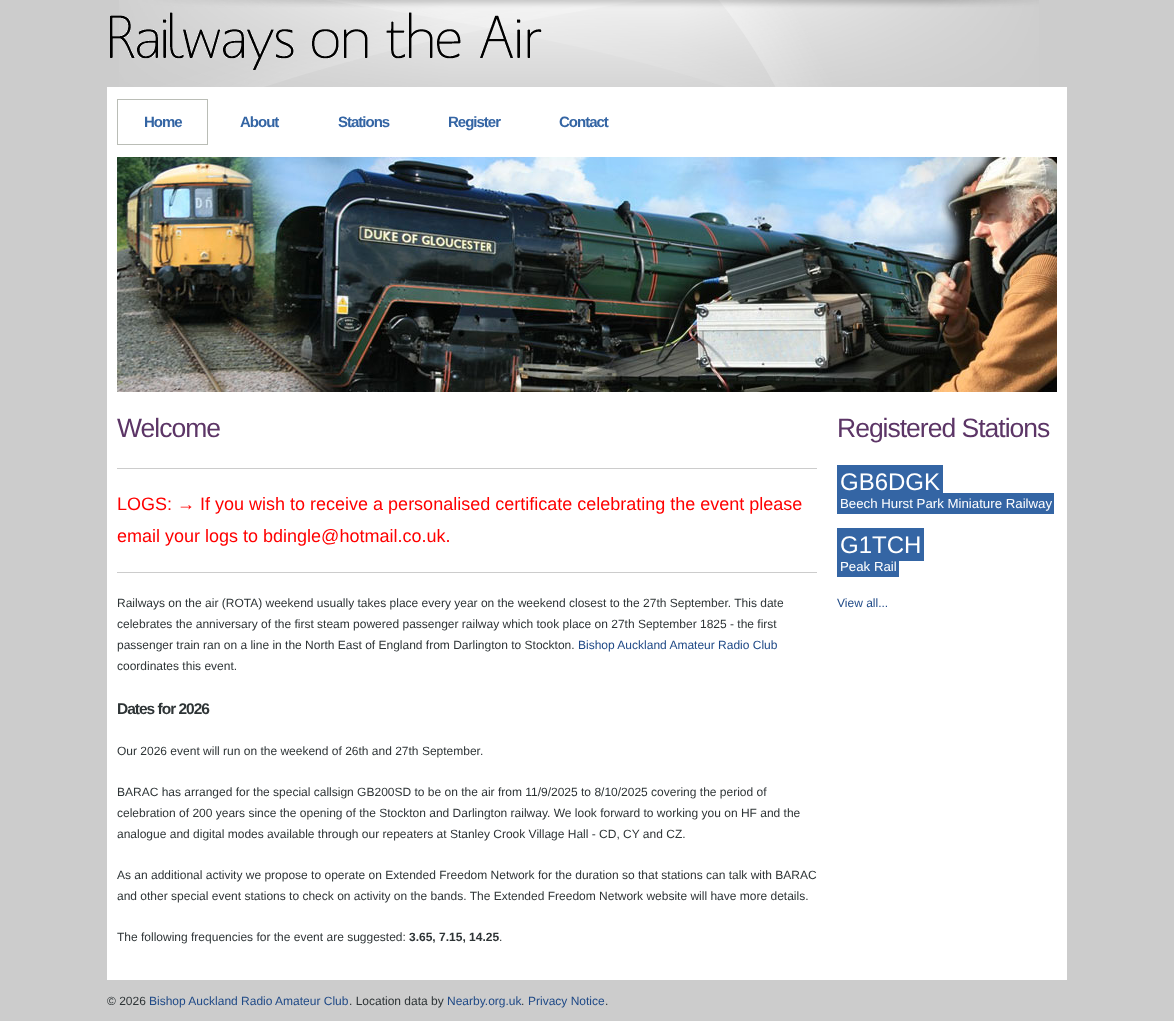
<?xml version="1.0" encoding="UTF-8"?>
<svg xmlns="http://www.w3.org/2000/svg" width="1174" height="1021">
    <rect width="100%" height="100%" fill="#CCCCCC"/>
    <image x="119" y="0" width="920" height="87" href="img_01.png"/>
    <image x="110" y="12" width="432" height="58" href="img_02.png"/>
    <rect x="107" y="87" width="960" height="893" fill="#FFFFFF"/>
    <rect x="117.5" y="99.5" width="90" height="45" fill="none" stroke="#BABDB6"/>
    <text x="144" y="127" font-family="Liberation Sans" font-size="15" font-weight="700" letter-spacing="-1" fill="#3465A4">Home</text>
    <text x="240" y="127" font-family="Liberation Sans" font-size="15" font-weight="700" letter-spacing="-1" fill="#3465A4">About</text>
    <text x="338" y="127" font-family="Liberation Sans" font-size="15" font-weight="700" letter-spacing="-1" fill="#3465A4">Stations</text>
    <text x="448" y="127" font-family="Liberation Sans" font-size="15" font-weight="700" letter-spacing="-1" fill="#3465A4">Register</text>
    <text x="559" y="127" font-family="Liberation Sans" font-size="15" font-weight="700" letter-spacing="-1" fill="#3465A4">Contact</text>
    <image x="117" y="157" width="940" height="235" href="img_03.png"/>
    <text x="117" y="437" font-family="Liberation Sans" font-size="26.5" letter-spacing="-1" fill="#5C3566">Welcome</text>
    <rect x="117" y="468" width="700" height="1" fill="#CCCCCC"/>
    <text font-family="Liberation Sans" font-size="18" fill="#FF0000">
        <tspan x="117" y="510">LOGS: → If you wish to receive a personalised certificate celebrating the event please</tspan>
        <tspan x="117" y="542">email your logs to bdingle@hotmail.co.uk.</tspan>
    </text>
    <rect x="117" y="572" width="700" height="1" fill="#CCCCCC"/>
    <text font-family="Liberation Sans" font-size="12" fill="#2E3436">
        <tspan x="117" y="607">Railways on the air (ROTA) weekend usually takes place every year on the weekend closest to the 27th September. This date</tspan>
        <tspan x="117" y="628">celebrates the anniversary of the first steam powered passenger railway which took place on 27th September 1825 - the first</tspan>
        <tspan x="117" y="649">passenger train ran on a line in the North East of England from Darlington to Stockton.</tspan>
    </text>
    <text x="578" y="649" font-family="Liberation Sans" font-size="12" fill="#204A87">Bishop Auckland Amateur Radio Club</text>
    <text x="117" y="670" font-family="Liberation Sans" font-size="12" fill="#2E3436">coordinates this event.</text>
    <text x="117" y="714" font-family="Liberation Sans" font-size="15.5" font-weight="700" letter-spacing="-1" fill="#2E3436">Dates for 2026</text>
    <text x="117" y="755" font-family="Liberation Sans" font-size="12" fill="#2E3436">Our 2026 event will run on the weekend of 26th and 27th September.</text>
    <text font-family="Liberation Sans" font-size="12" fill="#2E3436">
        <tspan x="117" y="796">BARAC has arranged for the special callsign GB200SD to be on the air from 11/9/2025 to 8/10/2025 covering the period of</tspan>
        <tspan x="117" y="817">celebration of 200 years since the opening of the Stockton and Darlington railway. We look forward to working you on HF and the</tspan>
        <tspan x="117" y="838">analogue and digital modes available through our repeaters at Stanley Crook Village Hall - CD, CY and CZ.</tspan>
    </text>
    <text font-family="Liberation Sans" font-size="12" fill="#2E3436">
        <tspan x="117" y="879">As an additional activity we propose to operate on Extended Freedom Network for the duration so that stations can talk with BARAC</tspan>
        <tspan x="117" y="900">and other special event stations to check on activity on the bands. The Extended Freedom Network website will have more details.</tspan>
    </text>
    <text x="117" y="941" font-family="Liberation Sans" font-size="12" fill="#2E3436">The following frequencies for the event are suggested:</text>
    <text x="409" y="941" font-family="Liberation Sans" font-size="12" font-weight="700" fill="#2E3436">3.65, 7.15, 14.25</text>
    <text x="499" y="941" font-family="Liberation Sans" font-size="12" fill="#2E3436">.</text>
    <text x="837" y="437" font-family="Liberation Sans" font-size="26.5" letter-spacing="-1" fill="#5C3566">Registered Stations</text>
    <rect x="837" y="465" width="106" height="28" fill="#3465A4"/>
    <text x="840" y="490" font-family="Liberation Sans" font-size="24" fill="#FFFFFF">GB6DGK</text>
    <rect x="837" y="493" width="217" height="21" fill="#3465A4"/>
    <text x="840" y="508" font-family="Liberation Sans" font-size="13.25" fill="#FFFFFF">Beech Hurst Park Miniature Railway</text>
    <rect x="837" y="528" width="87" height="33" fill="#3465A4"/>
    <text x="840" y="553" font-family="Liberation Sans" font-size="24" fill="#FFFFFF">G1TCH</text>
    <rect x="837" y="561" width="62" height="16" fill="#3465A4"/>
    <text x="840" y="571" font-family="Liberation Sans" font-size="13.25" fill="#FFFFFF">Peak Rail</text>
    <text x="837" y="607" font-family="Liberation Sans" font-size="12" fill="#204A87">View all...</text>
    <text x="107" y="1005" font-family="Liberation Sans" font-size="12" fill="#2E3436">© 2026</text>
    <text x="149" y="1005" font-family="Liberation Sans" font-size="12" fill="#204A87">Bishop Auckland Radio Amateur Club</text>
    <text x="349" y="1005" font-family="Liberation Sans" font-size="12" fill="#2E3436">. Location data by</text>
    <text x="447" y="1005" font-family="Liberation Sans" font-size="12" fill="#204A87">Nearby.org.uk</text>
    <text x="521" y="1005" font-family="Liberation Sans" font-size="12" fill="#2E3436">.</text>
    <text x="528" y="1005" font-family="Liberation Sans" font-size="12" fill="#204A87">Privacy Notice</text>
    <text x="605" y="1005" font-family="Liberation Sans" font-size="12" fill="#2E3436">.</text>
</svg>
